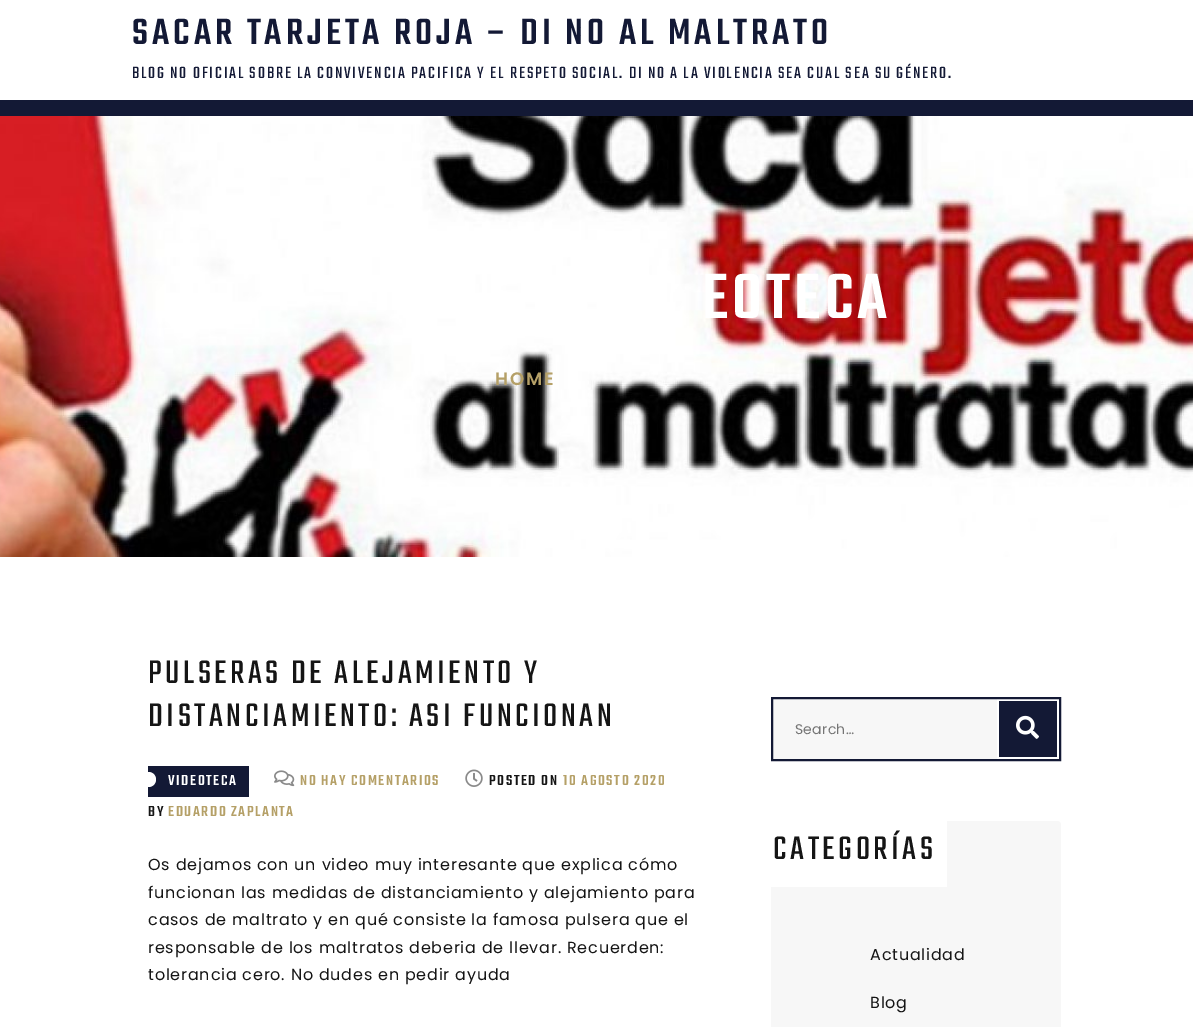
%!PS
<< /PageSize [1193 1027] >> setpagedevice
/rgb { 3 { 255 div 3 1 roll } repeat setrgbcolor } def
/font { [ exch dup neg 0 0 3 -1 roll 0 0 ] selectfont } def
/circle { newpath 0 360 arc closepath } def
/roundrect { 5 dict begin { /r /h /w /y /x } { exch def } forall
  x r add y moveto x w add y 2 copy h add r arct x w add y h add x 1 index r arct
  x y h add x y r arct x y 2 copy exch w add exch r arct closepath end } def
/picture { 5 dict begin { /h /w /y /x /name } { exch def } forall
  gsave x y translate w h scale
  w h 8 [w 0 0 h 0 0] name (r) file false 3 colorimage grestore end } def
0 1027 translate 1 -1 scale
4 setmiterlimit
255 255 255 rgb
0 0 1193 1027 rectfill
19 25 53 rgb
0 100 1193 16 rectfill
(img_01.rgb) 0 116 1193 441 picture
148 766 101 31 rectfill
255 255 255 rgb
148.5 779.5 7.5 circle fill
(img_02.rgb) 274 770 21 17 picture
(img_03.rgb) 465 769 18 18 picture
247 247 247 rgb
773 699 224 60 rectfill
19 25 53 rgb
2 setlinewidth
772 698 288 62 rectstroke
999 701 58 56 rectfill
(img_04.rgb) 1016 715 23 24 picture
247 247 247 rgb
771 821 290 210 4 roundrect fill
255 255 255 rgb
771 821 176 66 rectfill
/Teko-Medium 40 font
19 25 53 rgb
132 44 moveto 4 0 (SACAR TARJETA ROJA – DI NO AL MALTRATO) ashow
/Teko-Regular 18 font
132 78 moveto 1.8 0 (BLOG NO OFICIAL SOBRE LA CONVIVENCIA PACIFICA Y EL RESPETO SOCIAL. DI NO A LA VIOLENCIA SEA CUAL SEA SU GÉNERO.) ashow
/Teko-Medium 70 font
255 255 255 rgb
702 318 moveto 4 0 (EOTECA) ashow
/Poppins-SemiBold 18 font
181 160 103 rgb
495 385 moveto 2 0 (HOME) ashow
/Teko-Regular 36 font
21 21 21 rgb
148 683 moveto 3.6 0 (PULSERAS DE ALEJAMIENTO Y) ashow
148 726 moveto 3.6 0 (DISTANCIAMIENTO: ASI FUNCIONAN) ashow
/Teko-Medium 16 font
255 255 255 rgb
168 785 moveto 1.6 0 (VIDEOTECA) ashow
181 160 103 rgb
300 785 moveto 1.6 0 (NO HAY COMENTARIOS) ashow
21 21 21 rgb
489 785 moveto 1.6 0 (POSTED ON) ashow
181 160 103 rgb
563 785 moveto 1.6 0 (10 AGOSTO 2020) ashow
21 21 21 rgb
148 816 moveto 1.6 0 (BY) ashow
181 160 103 rgb
168 816 moveto 1.6 0 (EDUARDO ZAPLANTA) ashow
/Poppins-Regular 16 font
21 21 21 rgb
148 870 moveto 0.8 0 (Os dejamos con un video muy interesante que explica cómo) ashow
148 898 moveto 0.8 0 (funcionan las medidas de distanciamiento y alejamiento para) ashow
148 925 moveto 0.8 0 (casos de maltrato y en qué consiste la famosa pulsera que el) ashow
148 953 moveto 0.8 0 (responsable de los maltratos deberia de llevar. Recuerden:) ashow
148 980 moveto 0.8 0 (tolerancia cero. No dudes en pedir ayuda) ashow
/Poppins-Regular 14 font
117 117 117 rgb
795 734 moveto 0.25 0 (Search…) ashow
/Teko-Regular 36 font
21 21 21 rgb
773 859 moveto 3.6 0 (CATEGORÍAS) ashow
/Poppins-Regular 16 font
870 960 moveto 0.8 0 (Actualidad) ashow
870 1008 moveto 0.8 0 (Blog) ashow
showpage
